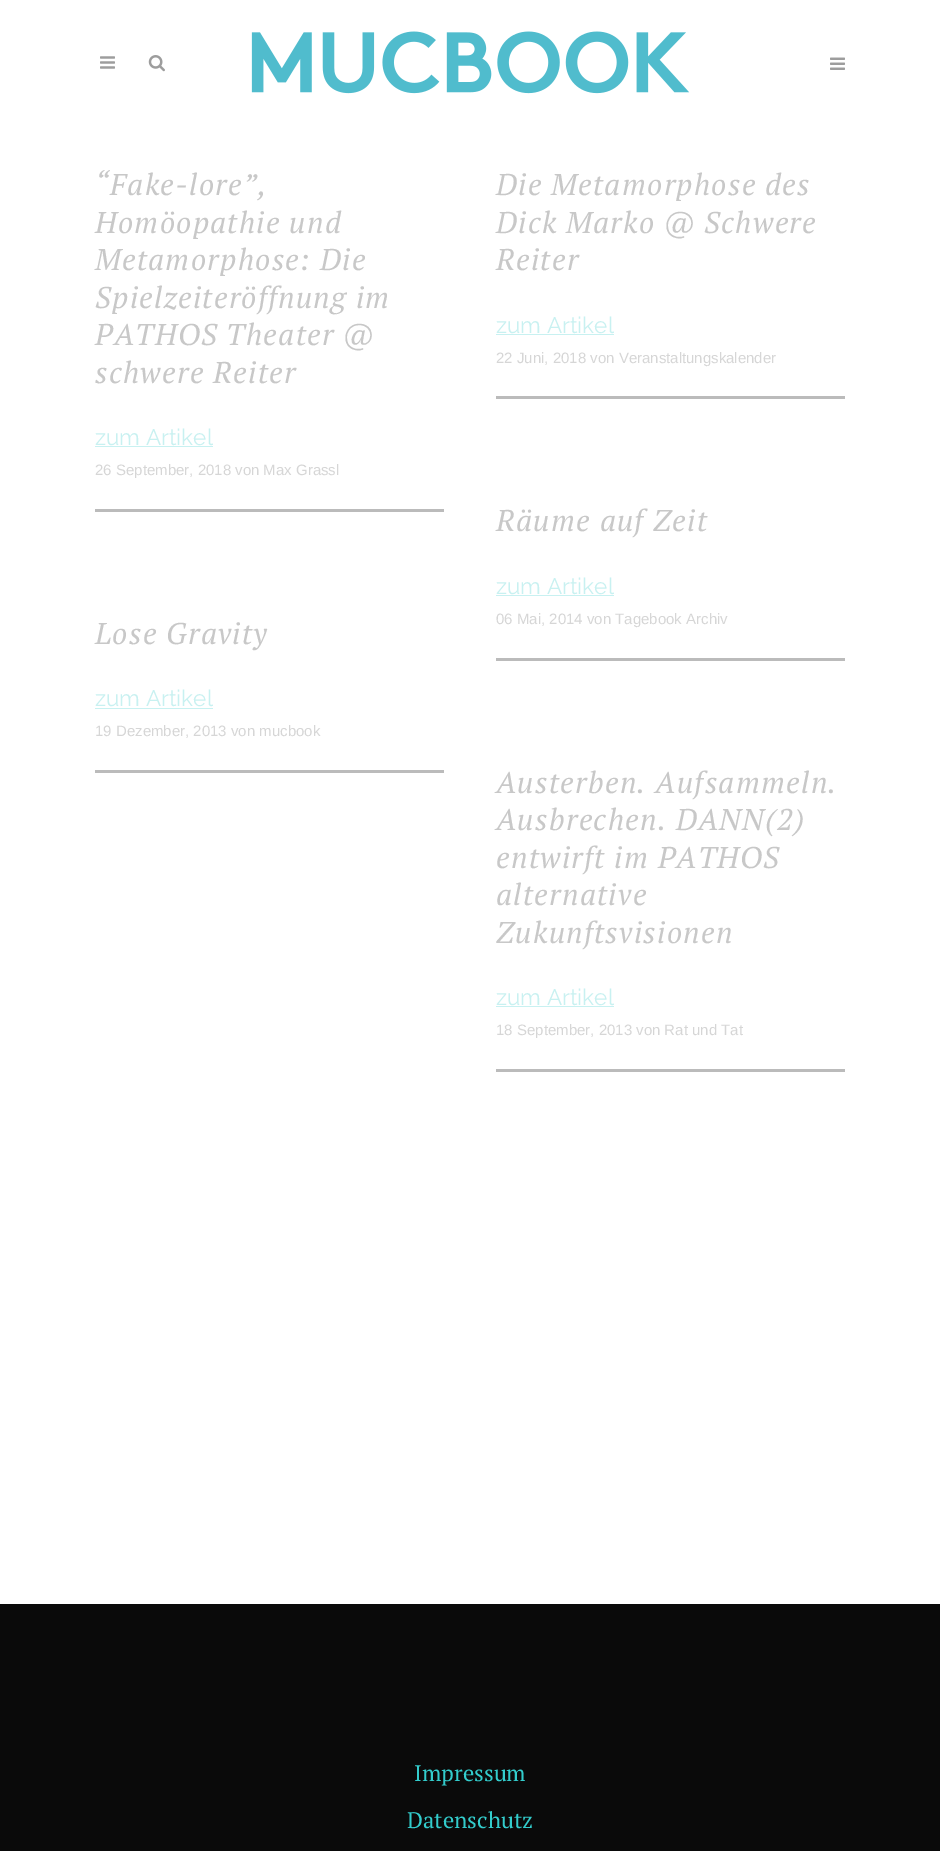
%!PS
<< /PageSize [940 1851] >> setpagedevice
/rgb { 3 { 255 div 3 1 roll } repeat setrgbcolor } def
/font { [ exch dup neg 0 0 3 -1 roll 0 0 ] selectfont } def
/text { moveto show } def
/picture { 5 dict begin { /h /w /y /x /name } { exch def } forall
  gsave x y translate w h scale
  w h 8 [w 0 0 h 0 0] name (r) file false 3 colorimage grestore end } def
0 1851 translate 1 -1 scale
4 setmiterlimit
255 255 255 rgb
0 0 940 1851 rectfill
(img_01.rgb) 100 56 15 13 picture
(img_02.rgb) 251 31 439 63 picture
(img_03.rgb) 148 55 17 17 picture
(img_04.rgb) 830 57 15 13 picture
187 187 187 rgb
95 509 349 3 rectfill
200 241 241 rgb
95 446 118 1 rectfill
187 187 187 rgb
496 396 349 3 rectfill
200 241 241 rgb
496 334 118 1 rectfill
187 187 187 rgb
496 658 349 3 rectfill
200 241 241 rgb
496 595 118 1 rectfill
187 187 187 rgb
95 770 349 3 rectfill
200 241 241 rgb
95 708 118 1 rectfill
187 187 187 rgb
496 1069 349 3 rectfill
200 241 241 rgb
496 1006 118 1 rectfill
10 10 10 rgb
0 1604 940 247 rectfill
/PTSerif-Italic 30 font
200 200 200 rgb
95 195 moveto 1.25 0 (“Fake-lore”,) ashow
95 233 moveto 1.25 0 (Homöopathie und) ashow
95 270 moveto 1.25 0 (Metamorphose: Die) ashow
95 308 moveto 1.25 0 (Spielzeiteröffnung im) ashow
95 345 moveto 1.25 0 (PATHOS Theater @) ashow
95 383 moveto 1.25 0 (schwere Reiter) ashow
/Raleway-Thin 22.5 font
200 241 241 rgb
(zum Artikel) 95 445 text
/LiberationSans-Regular 15 font
214 214 214 rgb
(26 September, 2018 von Max Grassl) 95 475 text
/PTSerif-Italic 30 font
200 200 200 rgb
496 195 moveto 1.25 0 (Die Metamorphose des) ashow
496 233 moveto 1.25 0 (Dick Marko @ Schwere) ashow
496 270 moveto 1.25 0 (Reiter) ashow
/Raleway-Thin 22.5 font
200 241 241 rgb
(zum Artikel) 496 333 text
/LiberationSans-Regular 15 font
214 214 214 rgb
(22 Juni, 2018 von Veranstaltungskalender) 496 363 text
/PTSerif-Italic 30 font
200 200 200 rgb
496 531 moveto 1.25 0 (Räume auf Zeit) ashow
/Raleway-Thin 22.5 font
200 241 241 rgb
(zum Artikel) 496 594 text
/LiberationSans-Regular 15 font
214 214 214 rgb
(06 Mai, 2014 von Tagebook Archiv) 496 624 text
/PTSerif-Italic 30 font
200 200 200 rgb
95 644 moveto 1.25 0 (Lose Gravity) ashow
/Raleway-Thin 22.5 font
200 241 241 rgb
(zum Artikel) 95 706 text
/LiberationSans-Regular 15 font
214 214 214 rgb
(19 Dezember, 2013 von mucbook) 95 736 text
/PTSerif-Italic 30 font
200 200 200 rgb
496 793 moveto 1.25 0 (Austerben. Aufsammeln.) ashow
496 830 moveto 1.25 0 (Ausbrechen. DANN\(2\)) ashow
496 868 moveto 1.25 0 (entwirft im PATHOS) ashow
496 905 moveto 1.25 0 (alternative) ashow
496 943 moveto 1.25 0 (Zukunftsvisionen) ashow
/Raleway-Thin 22.5 font
200 241 241 rgb
(zum Artikel) 496 1005 text
/LiberationSans-Regular 15 font
214 214 214 rgb
(18 September, 2013 von Rat und Tat) 496 1035 text
/PTSerif-Regular 22.5 font
51 204 204 rgb
(Impressum) 414 1781 text
(Datenschutz) 407 1828 text
showpage
